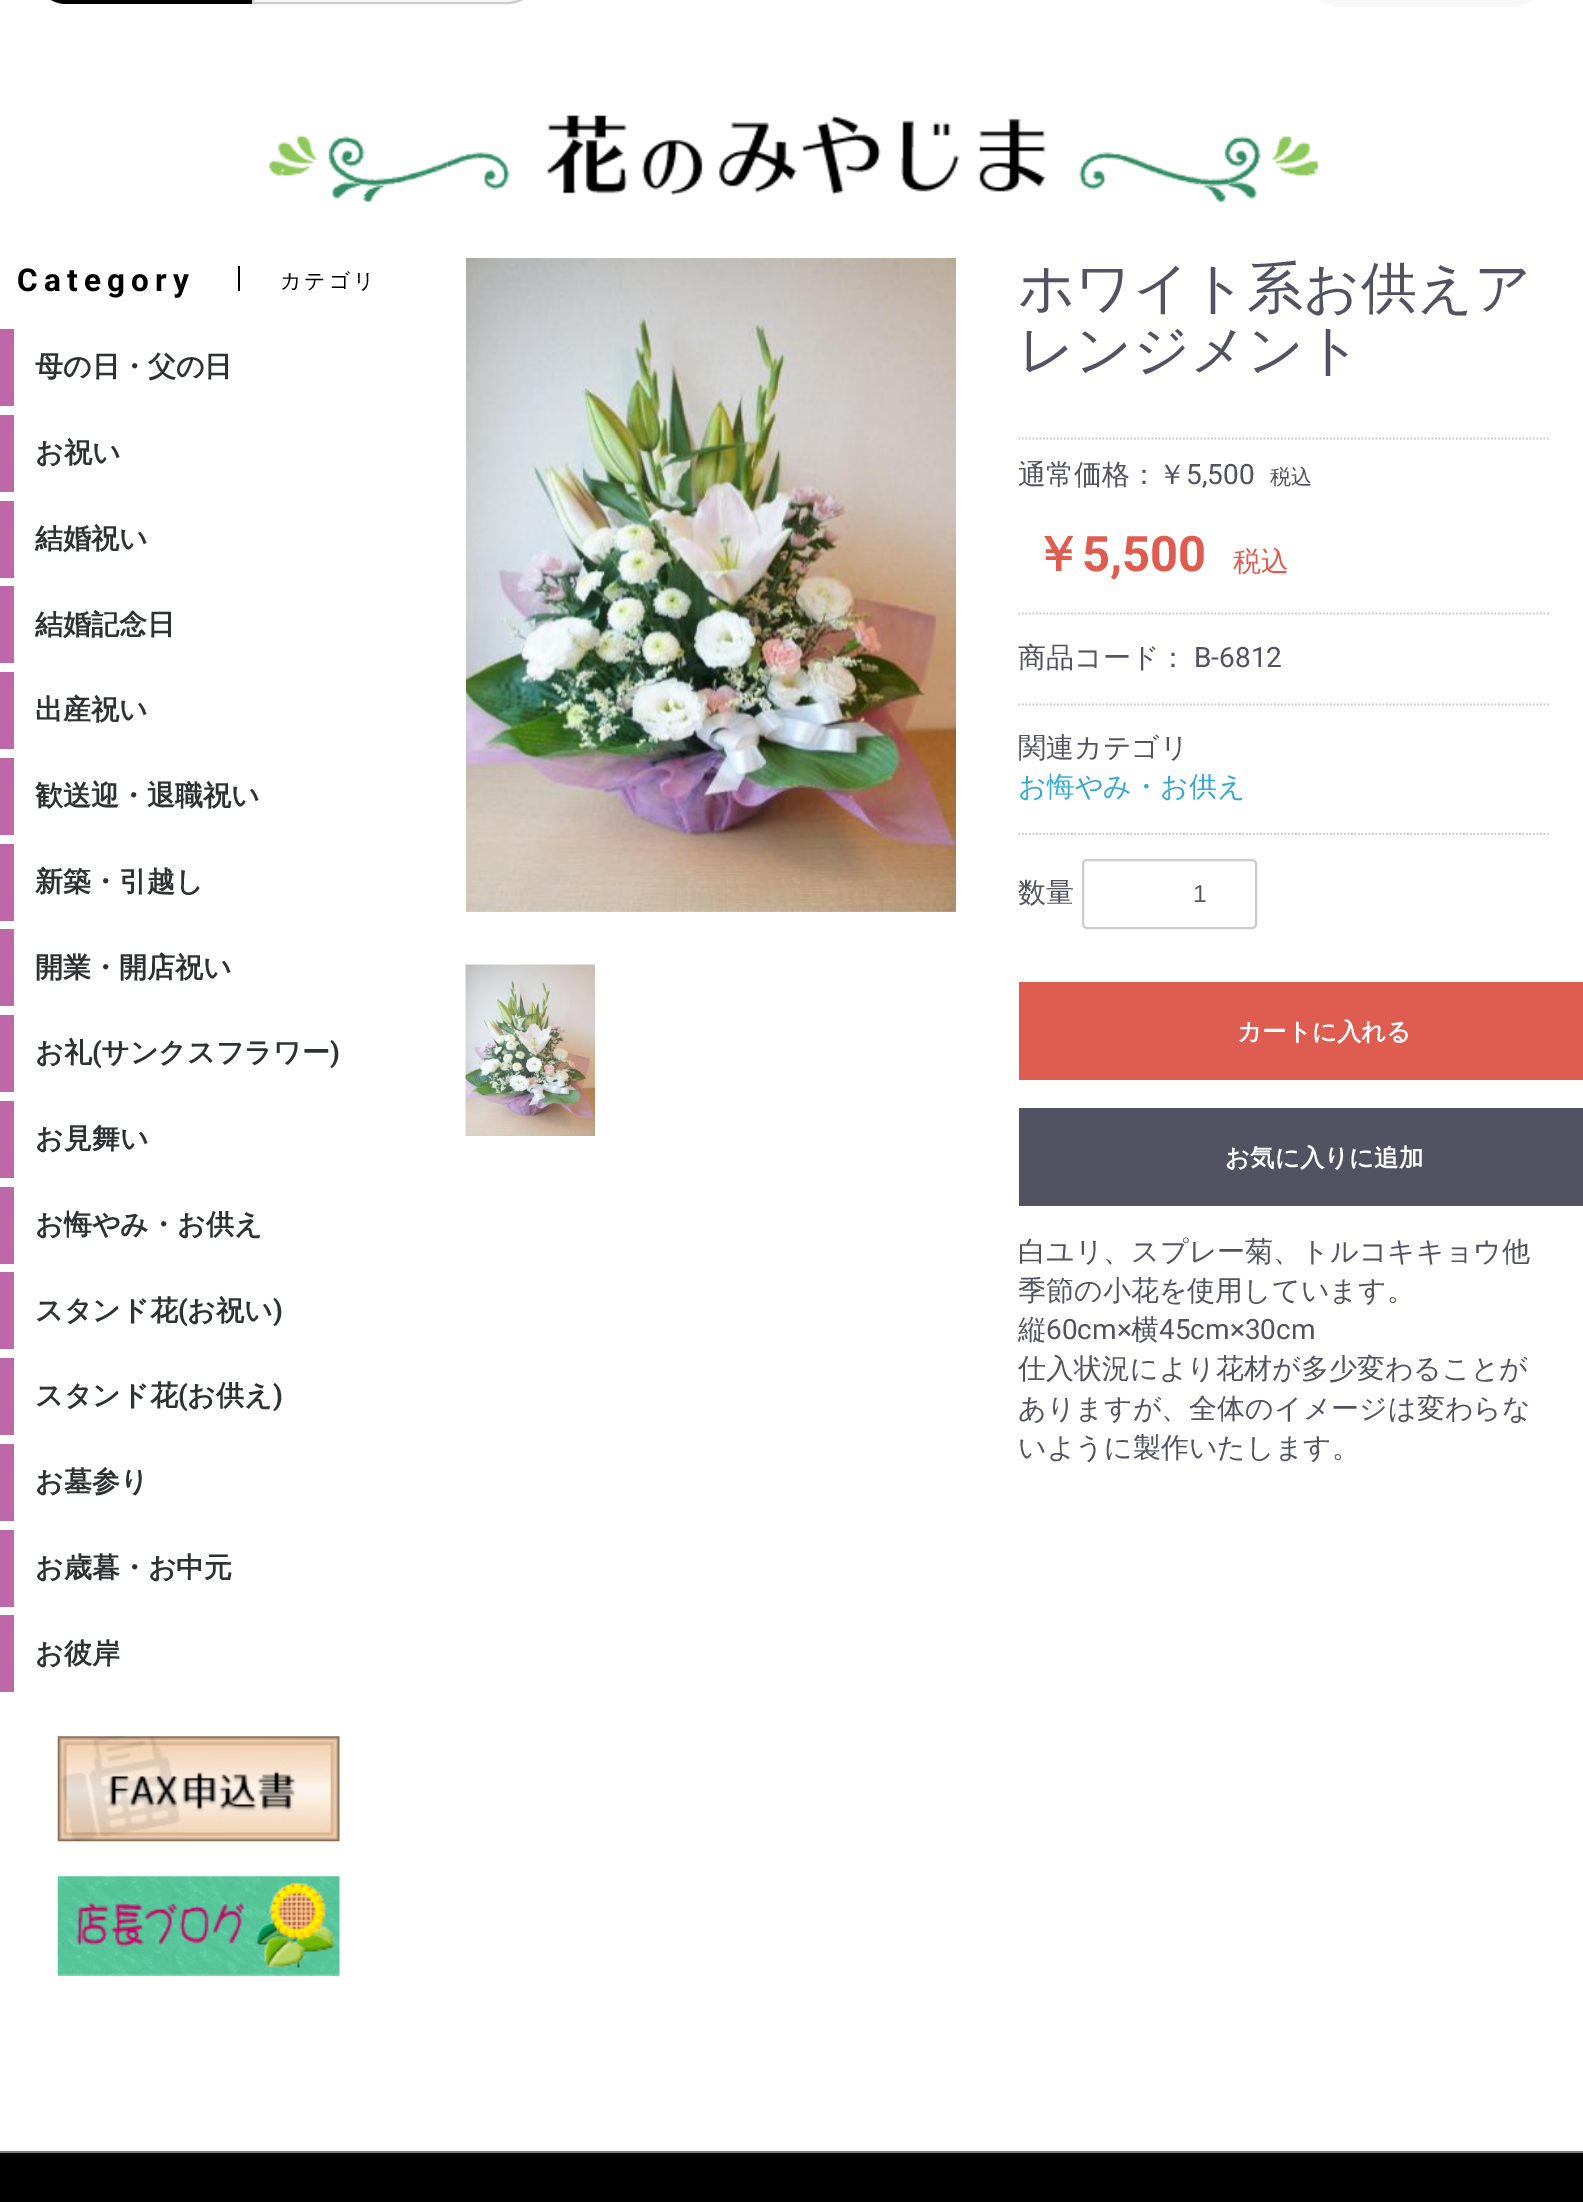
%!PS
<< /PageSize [1583 2202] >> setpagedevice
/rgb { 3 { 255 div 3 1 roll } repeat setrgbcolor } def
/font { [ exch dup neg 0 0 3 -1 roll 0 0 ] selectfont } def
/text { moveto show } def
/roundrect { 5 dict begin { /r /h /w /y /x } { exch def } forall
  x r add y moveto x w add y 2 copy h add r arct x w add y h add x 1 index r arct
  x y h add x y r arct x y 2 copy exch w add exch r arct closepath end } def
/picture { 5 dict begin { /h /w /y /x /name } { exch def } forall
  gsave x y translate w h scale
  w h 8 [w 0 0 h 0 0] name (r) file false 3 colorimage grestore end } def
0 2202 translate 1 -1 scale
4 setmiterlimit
255 255 255 rgb
0 0 1583 2202 rectfill
0 0 0 rgb
66.5 -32 moveto 185.5 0 rlineto 0 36 rlineto -185.5 0 rlineto -17.5 0 -31.5 -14 -31.5 -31.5 rcurveto 0 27 rlineto 0 -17.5 14 -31.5 31.5 -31.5 rcurveto closepath fill
246 246 246 rgb
253 -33 moveto 254.5 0 rlineto 17 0 30.5 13.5 30.5 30.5 rcurveto 0 -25 rlineto 0 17 -13.5 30.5 -30.5 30.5 rcurveto -254.5 0 rlineto closepath gsave fill grestore
204 204 204 rgb
2 setlinewidth
stroke
248 248 248 rgb
1304 -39 245 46 38.5 roundrect fill
(img_01.rgb) 269 115 1049 89 picture
0 0 0 rgb
238 266 2 25 rectfill
191 104 169 rgb
0 329 14 77 rectfill
0 415 14 77 rectfill
0 501 14 77 rectfill
0 586 14 77 rectfill
0 672 14 77 rectfill
0 758 14 77 rectfill
0 844 14 77 rectfill
0 929 14 77 rectfill
0 1015 14 77 rectfill
0 1101 14 77 rectfill
0 1187 14 77 rectfill
0 1272 14 77 rectfill
0 1358 14 77 rectfill
0 1444 14 77 rectfill
0 1530 14 77 rectfill
0 1615 14 77 rectfill
(img_02.rgb) 57 1736 283 106 picture
(img_03.rgb) 57 1876 283 100 picture
(img_04.rgb) 466 258 490 654 picture
(img_05.rgb) 465 964 130 172 picture
204 204 204 rgb
1.8 setlinewidth
[1.75 1.75] 0 setdash
1018.5 438.5 moveto 530.5 0 rlineto stroke
1018.5 613.5 moveto 530.5 0 rlineto stroke
1018.5 704.5 moveto 530.5 0 rlineto stroke
1018.5 834 moveto 530.5 0 rlineto stroke
2 setlinewidth
[] 0 setdash
1083 860 173 68 4 roundrect stroke
222 93 80 rgb
1019 982 564 98 rectfill
82 82 99 rgb
1019 1108 564 98 rectfill
0 0 0 rgb
0 2153 1583 49 rectfill
125 125 125 rgb
0 2151 1583 2 rectfill
/Roboto-Bold 31.5 font
0 0 0 rgb
17 291 moveto 6.25 0 (Category) ashow
/WenQuanYiZenHei-Medium 21 font
280 288 moveto 3 0 (カテゴリ) ashow
/WenQuanYiZenHei-Bold 28 font
46 50 51 rgb
(母の日・父の日) 35 376 text
(お祝い) 35 462 text
(結婚祝い) 35 548 text
(結婚記念日) 35 634 text
(出産祝い) 35 719 text
(歓送迎・退職祝い) 35 805 text
(新築・引越し) 35 891 text
(開業・開店祝い) 35 977 text
(お礼) 35 1062 text
/Roboto-Bold 28 font
(\() 92 1062 text
/WenQuanYiZenHei-Bold 28 font
(サンクスフラワー) 101 1062 text
/Roboto-Bold 28 font
(\)) 330 1062 text
/WenQuanYiZenHei-Bold 28 font
(お見舞い) 35 1148 text
(お悔やみ・お供え) 35 1234 text
(スタンド花) 35 1320 text
/Roboto-Bold 28 font
(\() 178 1320 text
/WenQuanYiZenHei-Bold 28 font
(お祝い) 187 1320 text
/Roboto-Bold 28 font
(\)) 273 1320 text
/WenQuanYiZenHei-Bold 28 font
(スタンド花) 35 1405 text
/Roboto-Bold 28 font
(\() 178 1405 text
/WenQuanYiZenHei-Bold 28 font
(お供え) 187 1405 text
/Roboto-Bold 28 font
(\)) 273 1405 text
/WenQuanYiZenHei-Bold 28 font
(お墓参り) 35 1491 text
(お歳暮・お中元) 35 1577 text
(お彼岸) 35 1663 text
/WenQuanYiZenHei-Medium 56 font
82 82 99 rgb
(ホワイト系お供えア) 1018 307 text
(レンジメント) 1018 369 text
/WenQuanYiZenHei-Medium 28 font
(通常価格：￥) 1018 484 text
/Roboto-Regular 28 font
(5,500) 1186 484 text
/WenQuanYiZenHei-Medium 21 font
(税込) 1270 484 text
/WenQuanYiZenHei-Bold 49 font
222 93 80 rgb
(￥) 1033 571 text
/Roboto-Bold 49 font
(5,500) 1082 571 text
/WenQuanYiZenHei-Medium 28 font
(税込) 1233 571 text
82 82 99 rgb
(商品コード：) 1018 667 text
/Roboto-Regular 28 font
(B-6812) 1194 667 text
/WenQuanYiZenHei-Medium 28 font
(関連カテゴリ) 1018 757 text
51 168 208 rgb
(お悔やみ・お供え) 1018 796 text
82 82 99 rgb
(数量) 1018 902 text
/LiberationSans-Regular 24.5 font
85 85 85 rgb
(1) 1193 902 text
/WenQuanYiZenHei-Bold 24.5 font
255 255 255 rgb
(カートに入れる) 1237 1040 text
(お気に入りに追加) 1225 1166 text
/WenQuanYiZenHei-Medium 28 font
82 82 99 rgb
(白ユリ、スプレー菊、トルコキキョウ他) 1018 1261 text
(季節の小花を使用しています。) 1018 1300 text
(縦) 1018 1339 text
/Roboto-Regular 28 font
(60cm×) 1046 1339 text
/WenQuanYiZenHei-Medium 28 font
(横) 1131 1339 text
/Roboto-Regular 28 font
(45cm×30cm) 1159 1339 text
/WenQuanYiZenHei-Medium 28 font
(仕入状況により花材が多少変わることが) 1018 1378 text
(ありますが、全体のイメージは変わらな) 1018 1418 text
(いように製作いたします。) 1018 1457 text
showpage
